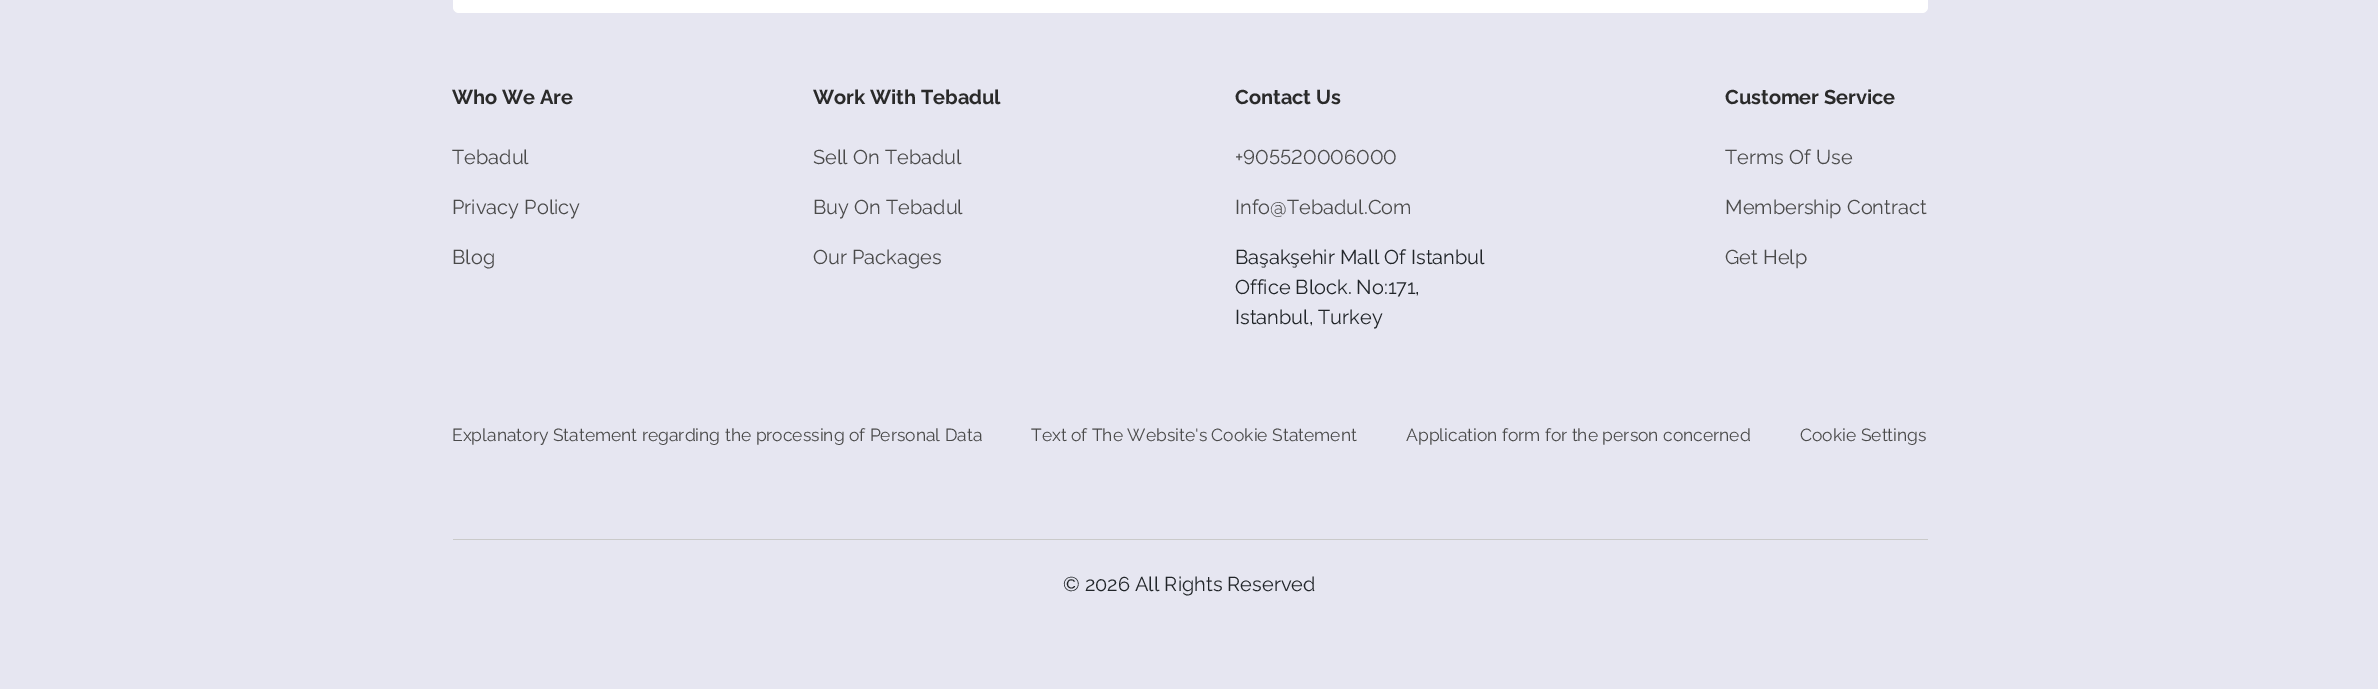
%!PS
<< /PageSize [2378 689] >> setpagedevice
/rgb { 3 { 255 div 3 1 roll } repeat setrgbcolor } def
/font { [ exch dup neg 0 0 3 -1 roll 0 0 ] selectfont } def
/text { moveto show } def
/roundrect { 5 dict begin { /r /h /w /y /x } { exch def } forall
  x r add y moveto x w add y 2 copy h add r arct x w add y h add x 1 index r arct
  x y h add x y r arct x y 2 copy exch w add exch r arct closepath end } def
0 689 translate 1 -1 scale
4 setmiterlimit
230 230 241 rgb
0 0 2378 689 rectfill
255 255 255 rgb
453 -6 1475 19 6 roundrect fill
202 202 202 rgb
453 539 1475 1 rectfill
/Raleway-Bold 20 font
42 42 42 rgb
(Who We Are) 452 104 text
/Raleway-Regular 20 font
74 74 74 rgb
(Tebadul) 452 164 text
(Privacy Policy) 452 214 text
(Blog) 452 264 text
/Raleway-Bold 20 font
42 42 42 rgb
(Work With Tebadul) 813 104 text
/Raleway-Regular 20 font
74 74 74 rgb
(Sell On Tebadul) 813 164 text
(Buy On Tebadul) 813 214 text
(Our Packages) 813 264 text
/Raleway-Bold 20 font
42 42 42 rgb
(Contact Us) 1235 104 text
/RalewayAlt-Regular 20 font
74 74 74 rgb
(+905520006000) 1235 164 text
/Raleway-Regular 20 font
(Info@Tebadul.Com) 1235 214 text
33 37 41 rgb
(Başakşehir Mall Of Istanbul) 1235 264 text
(Office Block. No:171,) 1235 294 text
(Istanbul, Turkey) 1235 324 text
/Raleway-Bold 20 font
42 42 42 rgb
(Customer Service) 1725 104 text
/Raleway-Regular 20 font
74 74 74 rgb
(Terms Of Use) 1725 164 text
(Membership Contract) 1725 214 text
(Get Help) 1725 264 text
/Raleway-Regular 17.5 font
(Explanatory Statement regarding the processing of Personal Data) 452 441 text
(Text of The Website's Cookie Statement) 1031 441 text
(Application form for the person concerned) 1406 441 text
(Cookie Settings) 1800 441 text
/Raleway-Regular 20 font
33 37 41 rgb
(© 2026 All Rights Reserved) 1063 591 text
showpage
